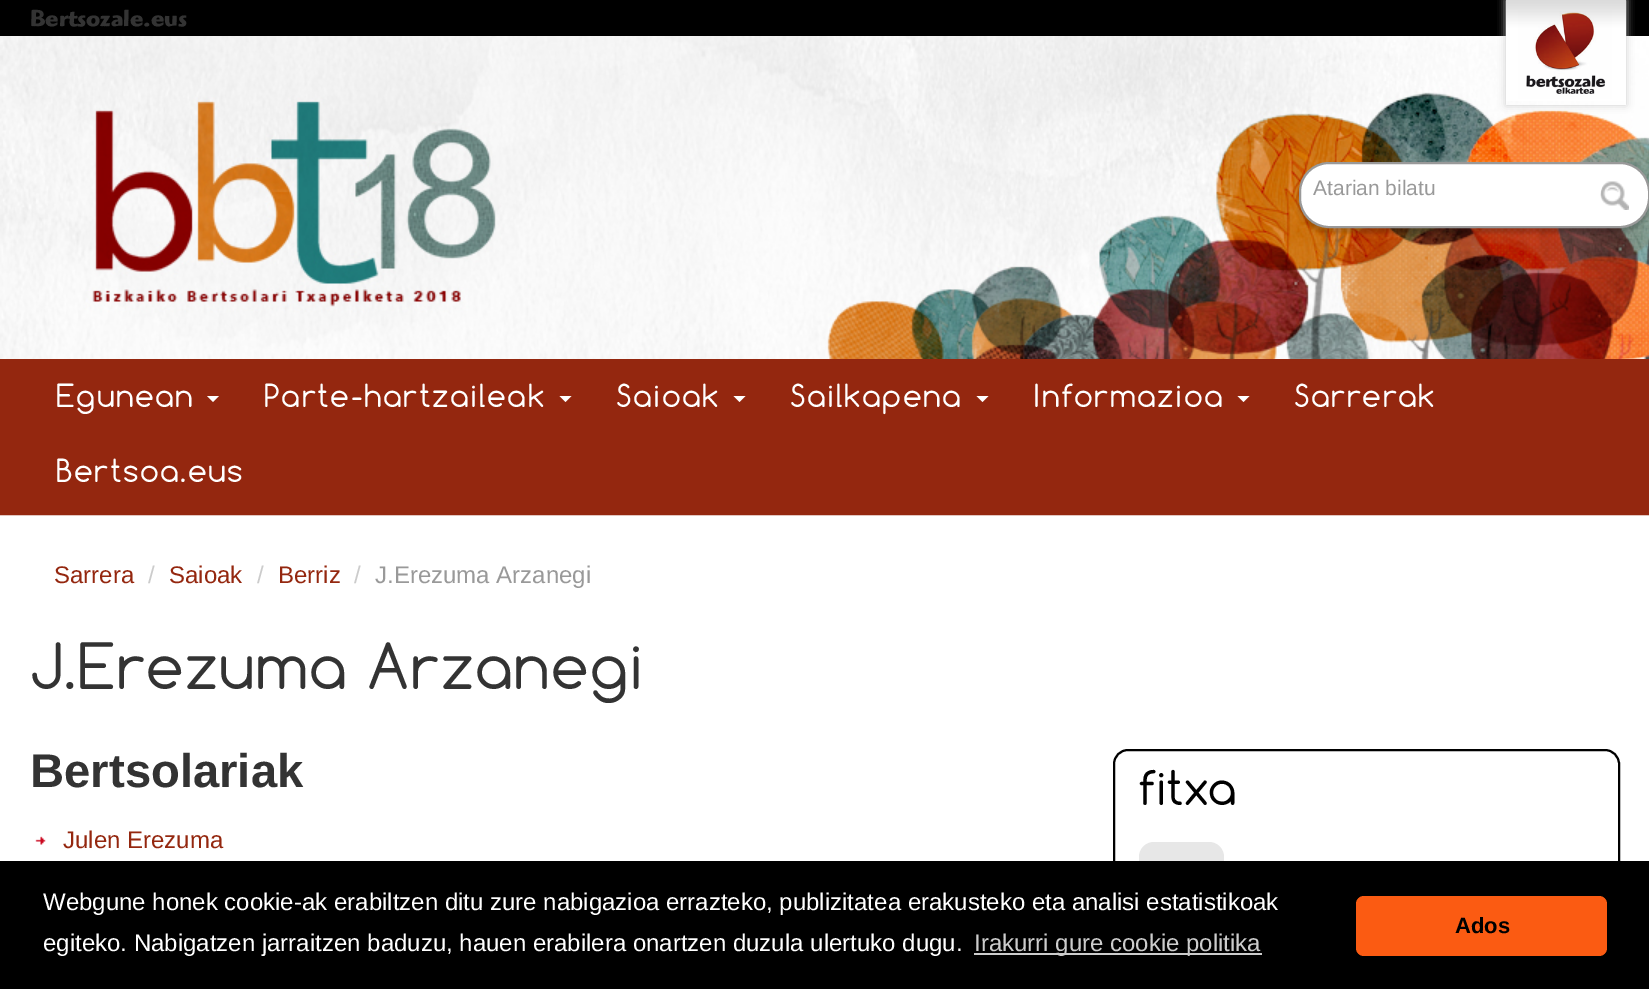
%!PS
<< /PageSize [1649 989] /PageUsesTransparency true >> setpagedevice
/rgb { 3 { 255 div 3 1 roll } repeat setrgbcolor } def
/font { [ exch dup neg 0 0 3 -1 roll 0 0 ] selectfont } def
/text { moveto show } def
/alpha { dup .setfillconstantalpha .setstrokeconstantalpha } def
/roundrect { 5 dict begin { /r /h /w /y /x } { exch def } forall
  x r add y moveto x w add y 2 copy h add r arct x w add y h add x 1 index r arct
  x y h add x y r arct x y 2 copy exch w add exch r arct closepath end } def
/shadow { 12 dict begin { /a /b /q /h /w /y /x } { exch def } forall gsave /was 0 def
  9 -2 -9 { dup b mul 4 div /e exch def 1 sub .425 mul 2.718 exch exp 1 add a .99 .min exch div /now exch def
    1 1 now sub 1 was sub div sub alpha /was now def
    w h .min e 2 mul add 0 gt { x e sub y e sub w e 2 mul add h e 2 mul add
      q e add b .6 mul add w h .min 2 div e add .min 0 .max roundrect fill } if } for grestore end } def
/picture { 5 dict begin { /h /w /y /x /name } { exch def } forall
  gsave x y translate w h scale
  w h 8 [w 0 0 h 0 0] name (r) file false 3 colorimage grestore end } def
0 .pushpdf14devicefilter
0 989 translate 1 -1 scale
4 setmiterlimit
255 255 255 rgb
0 0 1649 989 rectfill
0 0 0 rgb
0 0 1649 36 rectfill
(img_02.rgb) 0 36 1649 323 picture
gsave
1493 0 moveto 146 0 rlineto 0 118 rlineto -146 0 rlineto closepath 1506 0 moveto 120 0 rlineto 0 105 rlineto -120 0 rlineto closepath eoclip newpath
204 204 204 rgb
1506 0 120 105 0 4 1 shadow
grestore
(img_01.rgb) 1506 0 120 101 picture
1 1 1 rgb
1299 167 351 66 30 2 0.2 shadow
255 255 255 rgb
1300 163 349 64 29 roundrect gsave fill grestore
153 153 153 rgb
2 setlinewidth
stroke
(img_03.rgb) 1600 181 29 29 picture
148 39 15 rgb
3 setlinewidth
1.5 360.5 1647 153 rectstroke
3 362 1644 150 rectfill
255 255 255 rgb
207 396 moveto 12 0 rlineto -6 6 rlineto closepath fill
559.5 396 moveto 12 0 rlineto -6 6 rlineto closepath fill
733.5 396 moveto 12 0 rlineto -6 6 rlineto closepath fill
976.5 396 moveto 12 0 rlineto -6 6 rlineto closepath fill
1237.5 396 moveto 12 0 rlineto -6 6 rlineto closepath fill
(img_04.rgb) 35 836 11 9 picture
0 0 0 rgb
2 setlinewidth
1114 750 505 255 14 roundrect stroke
231 231 231 rgb
1139 842 85 49 15 roundrect fill
0 0 0 rgb
0 861 1649 128 rectfill
204 204 204 rgb
974 953 288 2 rectfill
251 91 18 rgb
1356 896 251 60 8 roundrect fill
/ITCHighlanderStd-Bold 24 font
51 51 51 rgb
(Bertsozale.eus) 30 26 text
/LiberationSans-Regular 21 font
153 153 153 rgb
(Atarian bilatu) 1313 195 text
/Comfortaa-Regular 30 font
255 255 255 rgb
56 407 moveto 1.5 0 (Egunean) ashow
264 407 moveto 1.5 0 (Parte-hartzaileak) ashow
616 407 moveto 1.5 0 (Saioak) ashow
790 407 moveto 1.5 0 (Sailkapena) ashow
1033 407 moveto 1.5 0 (Informazioa) ashow
1294 407 moveto 1.5 0 (Sarrerak) ashow
56 482 moveto 1.5 0 (Bertsoa.eus) ashow
/LiberationSans-Regular 24 font
148 39 15 rgb
(Sarrera) 54 583 text
204 204 204 rgb
(/) 148 583 text
148 39 15 rgb
(Saioak) 169 583 text
204 204 204 rgb
(/) 257 583 text
148 39 15 rgb
(Berriz) 278 583 text
204 204 204 rgb
(/) 354 583 text
153 153 153 rgb
(J.Erezuma Arzanegi) 375 583 text
/Comfortaa-Regular 60 font
51 51 51 rgb
30 689 moveto 1.5 0 (J.Erezuma Arzanegi) ashow
/LiberationSans-Bold 47.25 font
(Bertsolariak) 30 787 text
/LiberationSans-Regular 24 font
148 39 15 rgb
(Julen Erezuma) 63 848 text
/Comfortaa-Regular 45 font
0 0 0 rgb
(fitxa) 1138 805 text
/LiberationSans-Regular 24 font
255 255 255 rgb
(Webgune honek cookie-ak erabiltzen ditu zure nabigazioa errazteko, publizitatea erakusteko eta analisi estatistikoak) 43 910 text
(egiteko. Nabigatzen jarraitzen baduzu, hauen erabilera onartzen duzula ulertuko dugu.) 43 951 text
204 204 204 rgb
(Irakurri gure cookie politika) 974 951 text
/LiberationSans-Bold 22 font
0 0 0 rgb
(Ados) 1455 933 text
.poppdf14devicefilter showpage
